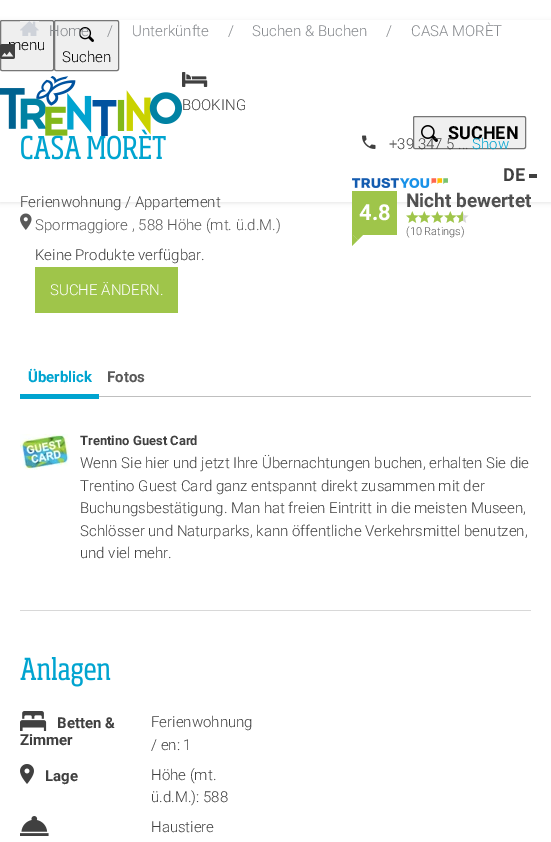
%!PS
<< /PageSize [551 842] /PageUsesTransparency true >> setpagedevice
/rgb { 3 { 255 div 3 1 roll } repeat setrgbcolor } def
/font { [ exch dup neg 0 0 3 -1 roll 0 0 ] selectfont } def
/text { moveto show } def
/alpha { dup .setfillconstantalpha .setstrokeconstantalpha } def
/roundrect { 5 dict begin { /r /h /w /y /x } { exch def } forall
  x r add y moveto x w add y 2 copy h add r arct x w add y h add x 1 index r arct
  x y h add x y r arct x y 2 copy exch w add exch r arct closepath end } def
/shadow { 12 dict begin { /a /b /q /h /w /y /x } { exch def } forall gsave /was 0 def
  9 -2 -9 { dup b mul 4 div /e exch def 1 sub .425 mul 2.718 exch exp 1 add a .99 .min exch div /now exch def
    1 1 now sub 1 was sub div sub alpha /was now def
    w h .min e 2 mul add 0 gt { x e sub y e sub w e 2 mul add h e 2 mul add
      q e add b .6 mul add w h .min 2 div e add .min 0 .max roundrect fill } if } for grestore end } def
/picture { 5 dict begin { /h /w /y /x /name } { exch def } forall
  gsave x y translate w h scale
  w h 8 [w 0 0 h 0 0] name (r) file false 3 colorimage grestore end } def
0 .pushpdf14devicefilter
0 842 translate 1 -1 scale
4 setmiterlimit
255 255 255 rgb
0 0 551 842 rectfill
0 0 0 rgb
0 21 551 182 0 2 0.1 shadow
255 255 255 rgb
0 20 551 182 rectfill
239 239 239 rgb
0.5 20.5 53 50 1.5 roundrect gsave fill grestore
118 118 118 rgb
stroke
(img_01.rgb) 20 21 19 15 picture
239 239 239 rgb
54.5 20.5 64 50 1.5 roundrect gsave fill grestore
118 118 118 rgb
stroke
(img_02.rgb) 79 27 15 15 picture
(img_03.rgb) 0 76 182 60 picture
(img_04.rgb) 182 72 26 15 picture
239 239 239 rgb
413.5 116.5 112 32 1.5 roundrect gsave fill grestore
118 118 118 rgb
stroke
(img_05.rgb) 421 125 17 17 picture
64 64 64 rgb
529 174 8 4 rectfill
(img_07.rgb) 21 129 145 31 picture
(img_08.rgb) 20 213 12 17 picture
(img_09.rgb) 362 135 14 14 picture
(img_10.rgb) 352 178 96 10 picture
159 197 74 rgb
352 191 45 44 rectfill
352 234 moveto 12 0 rlineto -6 6 rlineto closepath fill
352 246 moveto 0 -12 rlineto 6 6 rlineto closepath fill
(img_11.rgb) 406 211 13 12 picture
(img_12.rgb) 418 211 13 12 picture
(img_11.rgb) 431 211 13 12 picture
(img_11.rgb) 444 211 13 12 picture
(img_13.rgb) 456 211 13 12 picture
(img_14.rgb) 456 211 7 12 picture
35 267 143 46 rectfill
191 191 191 rgb
99 396 432 1 rectfill
0 164 208 rgb
20 394 79 5 rectfill
(img_15.rgb) 20 434 49 36 picture
216 216 216 rgb
20 610 511 1 rectfill
(img_16.rgb) 20 657 91 30 picture
(img_17.rgb) 20 711 27 20 picture
(img_18.rgb) 20 764 14 20 picture
(img_19.rgb) 20 816 29 20 picture
/Roboto-Light 15 font
134 137 141 rgb
(Home) 49 36 text
(/) 107 36 text
(Unterkünfte) 132 36 text
(/) 228 36 text
(Suchen & Buchen) 252 36 text
(/) 386 36 text
(CASA MORÈT) 411 36 text
0 0 0 rgb
(menu) 8 50 text
(Suchen) 62 62 text
64 64 64 rgb
(BOOKING) 182 110 text
/Roboto-Bold 18 font
0 0 0 rgb
(SUCHEN) 448 139 text
64 64 64 rgb
(DE) 503 181 text
(img_06.rgb) 0 44 15 15 picture
/Roboto-Light 15 font
(Ferienwohnung / Appartement) 20 207 text
89 89 89 rgb
(Spormaggiore , 588 Höhe \(mt. ü.d.M.\)) 35 230 text
64 64 64 rgb
(+39 347 5 ...) 389 149 text
0 164 208 rgb
(Show) 472 149 text
/Roboto-Bold 22 font
255 255 255 rgb
(4.8) 359 220 text
/Roboto-Bold 19 font
80 80 80 rgb
(Nicht bewertet) 406 207 text
/Roboto-Light 11 font
89 89 89 rgb
(\(10 Ratings\)) 406 235 text
/Roboto-Light 15 font
64 64 64 rgb
(Keine Produkte verfügbar.) 35 260 text
255 255 255 rgb
(SUCHE ÄNDERN.) 50 295 text
/Roboto-Bold 15 font
0 164 208 rgb
(Überblick) 28 382 text
89 89 89 rgb
(Fotos) 107 382 text
/Roboto-Bold 13 font
64 64 64 rgb
(Trentino Guest Card) 80 445 text
/Roboto-Light 15 font
(Wenn Sie hier und jetzt Ihre Übernachtungen buchen, erhalten Sie die) 80 468 text
(Trentino Guest Card ganz entspannt direkt zusammen mit der) 80 491 text
(Buchungsbestätigung. Man hat freien Eintritt in die meisten Museen,) 80 513 text
(Schlösser und Naturparks, kann öffentliche Verkehrsmittel benutzen,) 80 536 text
(und viel mehr.) 80 558 text
/Roboto-Bold 15 font
(Betten &) 57 728 text
(Zimmer) 20 745 text
/Roboto-Light 15 font
(Ferienwohnung) 151 727 text
(/ en: 1) 151 750 text
/Roboto-Bold 15 font
(Lage) 45 781 text
/Roboto-Light 15 font
(Höhe \(mt.) 151 780 text
(ü.d.M.\): 588) 151 802 text
(Haustiere) 151 832 text
.poppdf14devicefilter showpage
